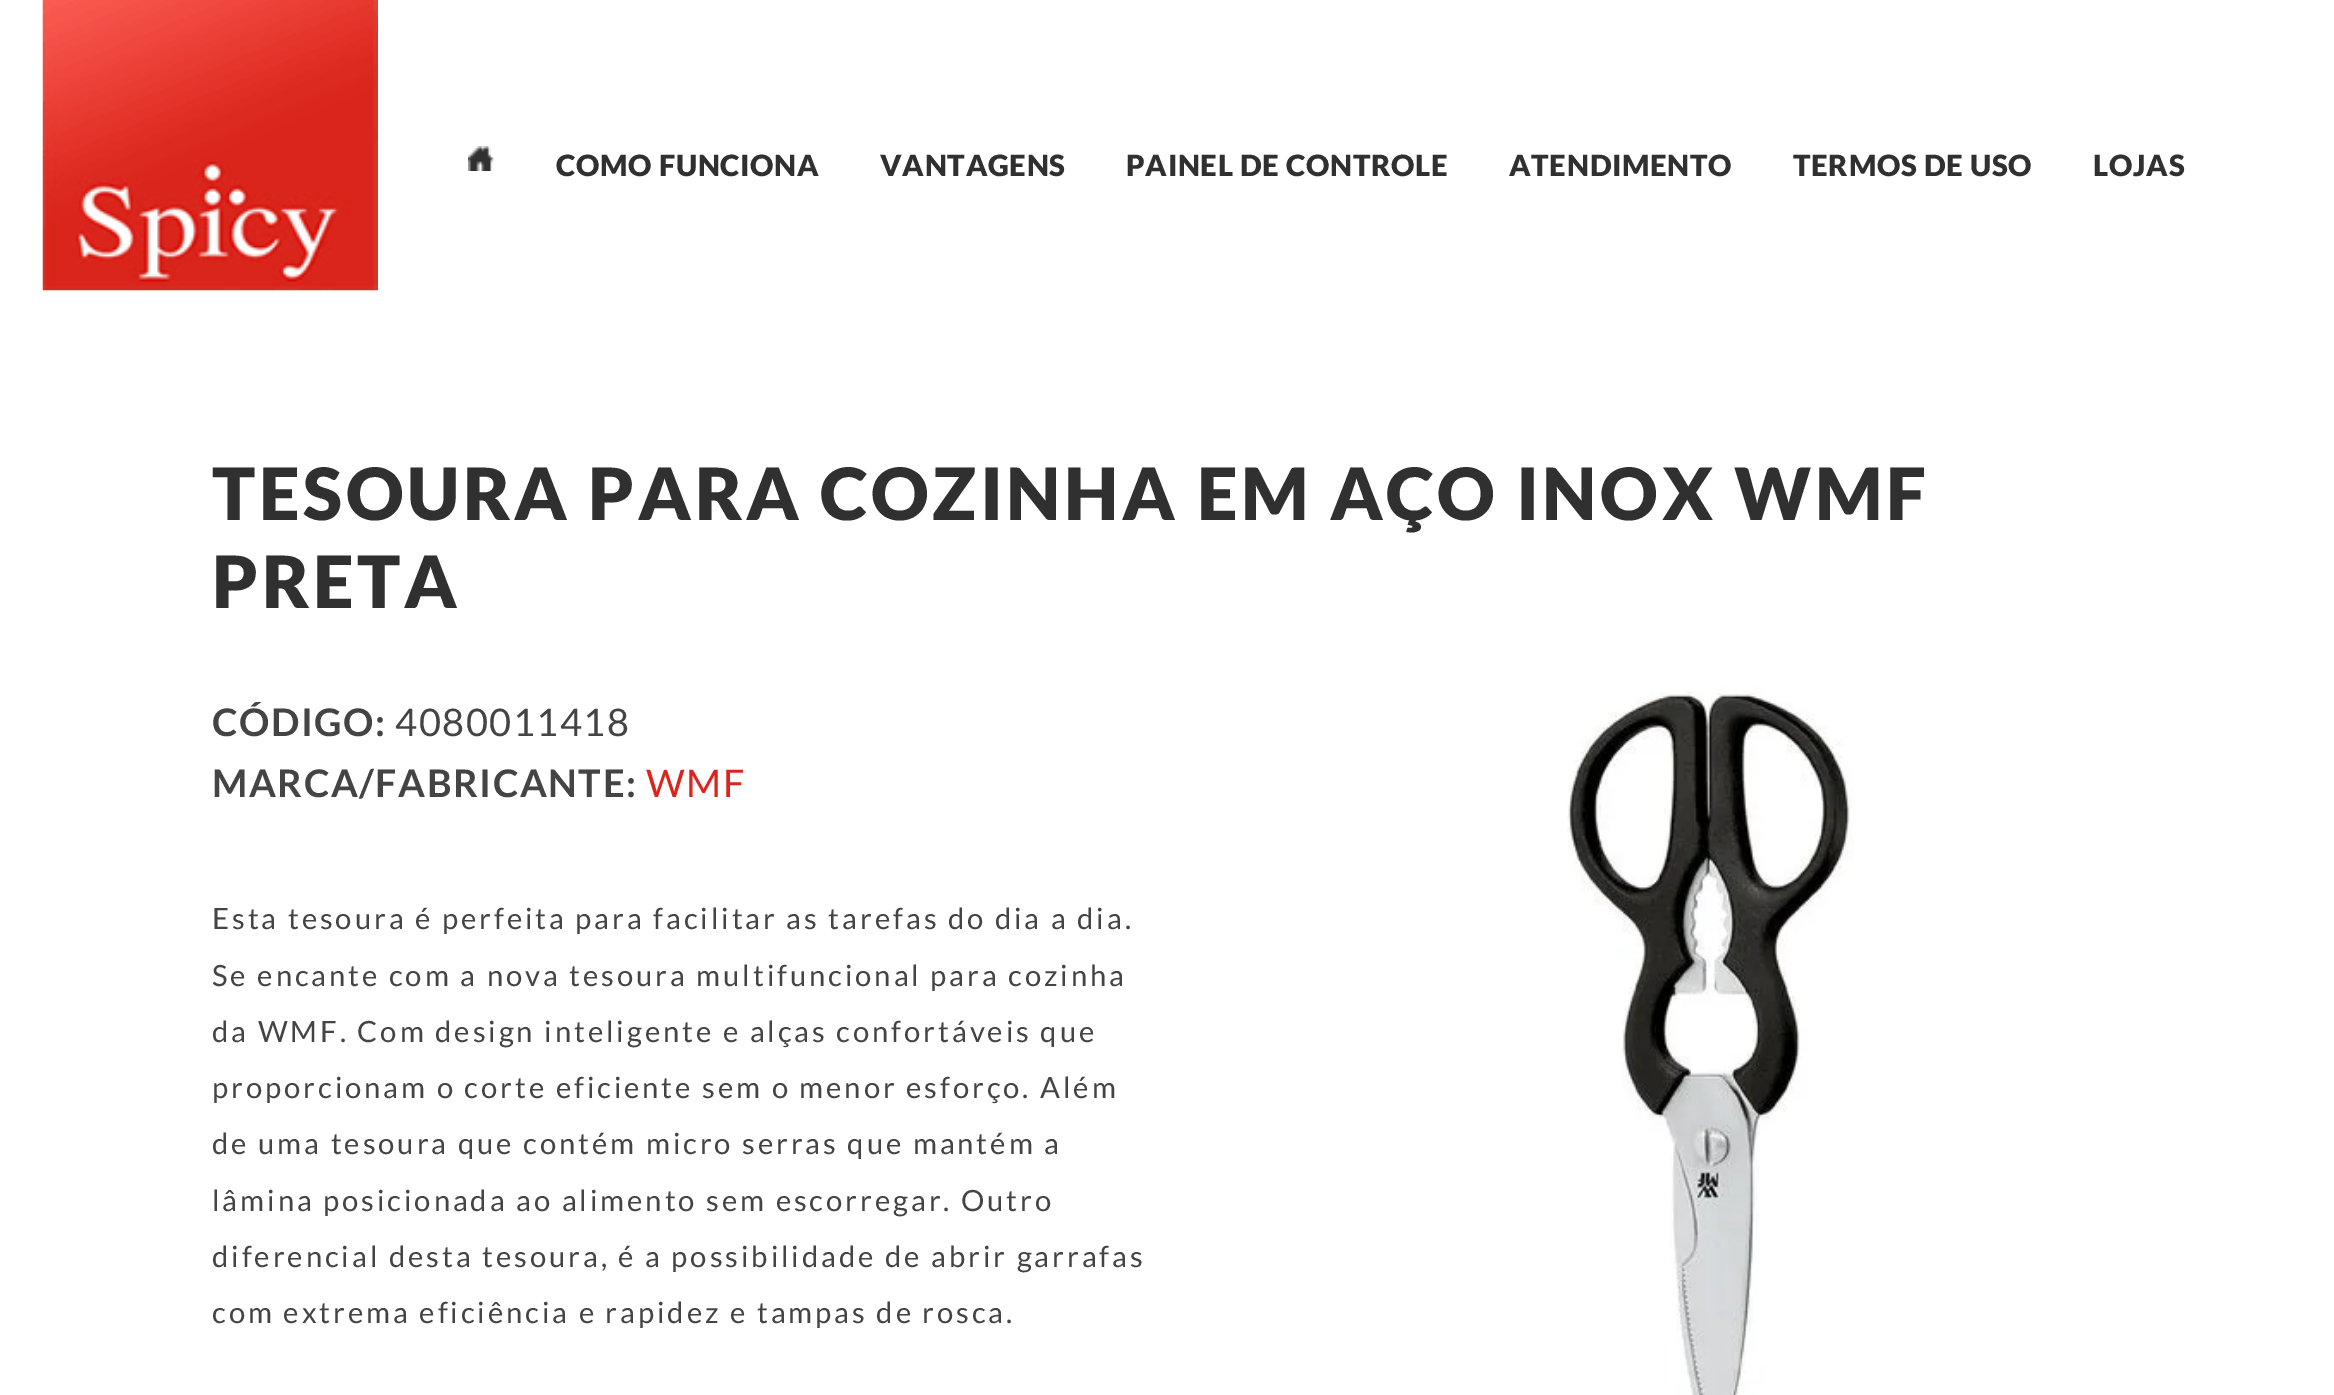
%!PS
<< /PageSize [2334 1395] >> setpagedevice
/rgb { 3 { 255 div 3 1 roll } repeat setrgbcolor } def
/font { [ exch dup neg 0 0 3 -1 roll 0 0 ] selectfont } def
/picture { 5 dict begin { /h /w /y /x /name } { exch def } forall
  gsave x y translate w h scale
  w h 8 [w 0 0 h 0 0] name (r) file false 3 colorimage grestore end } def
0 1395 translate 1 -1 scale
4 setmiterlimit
255 255 255 rgb
0 0 2334 1395 rectfill
(img_01.rgb) 42 0 336 291 picture
(img_02.rgb) 468 146 26 25 picture
(img_03.rgb) 1567 687 287 708 picture
/Lato-Black 29.25 font
48 48 48 rgb
556 176 moveto 0.7 0 (COMO FUNCIONA) ashow
880 176 moveto 0.7 0 (VANTAGENS) ashow
1126 176 moveto 0.7 0 (PAINEL DE CONTROLE) ashow
1509 176 moveto 0.7 0 (ATENDIMENTO) ashow
1793 176 moveto 0.7 0 (TERMOS DE USO) ashow
2093 176 moveto 0.7 0 (LOJAS) ashow
/Lato-Black 72 font
212 520 moveto 3.6 0 (TESOURA PARA COZINHA EM AÇO INOX WMF) ashow
212 608 moveto 3.6 0 (PRETA) ashow
/Lato-Bold 38 font
68 68 68 rgb
212 736 moveto 1.5 0 (CÓDIGO:) ashow
/Lato-Regular 38 font
395 736 moveto 1.5 0 (4080011418) ashow
/Lato-Bold 38 font
212 797 moveto 1.5 0 (MARCA/FABRICANTE:) ashow
/Lato-Regular 38 font
219 36 27 rgb
646 797 moveto 1.5 0 (WMF) ashow
/Lato-Regular 29.25 font
68 68 68 rgb
212 929 moveto 2.93 0 (Esta tesoura é perfeita para facilitar as tarefas do dia a dia.) ashow
212 986 moveto 2.93 0 (Se encante com a nova tesoura multifuncional para cozinha) ashow
212 1042 moveto 2.93 0 (da WMF. Com design inteligente e alças confortáveis que) ashow
212 1098 moveto 2.93 0 (proporcionam o corte eficiente sem o menor esforço. Além) ashow
212 1154 moveto 2.93 0 (de uma tesoura que contém micro serras que mantém a) ashow
212 1211 moveto 2.93 0 (lâmina posicionada ao alimento sem escorregar. Outro) ashow
212 1267 moveto 2.93 0 (diferencial desta tesoura, é a possibilidade de abrir garrafas) ashow
212 1323 moveto 2.93 0 (com extrema eficiência e rapidez e tampas de rosca.) ashow
showpage
